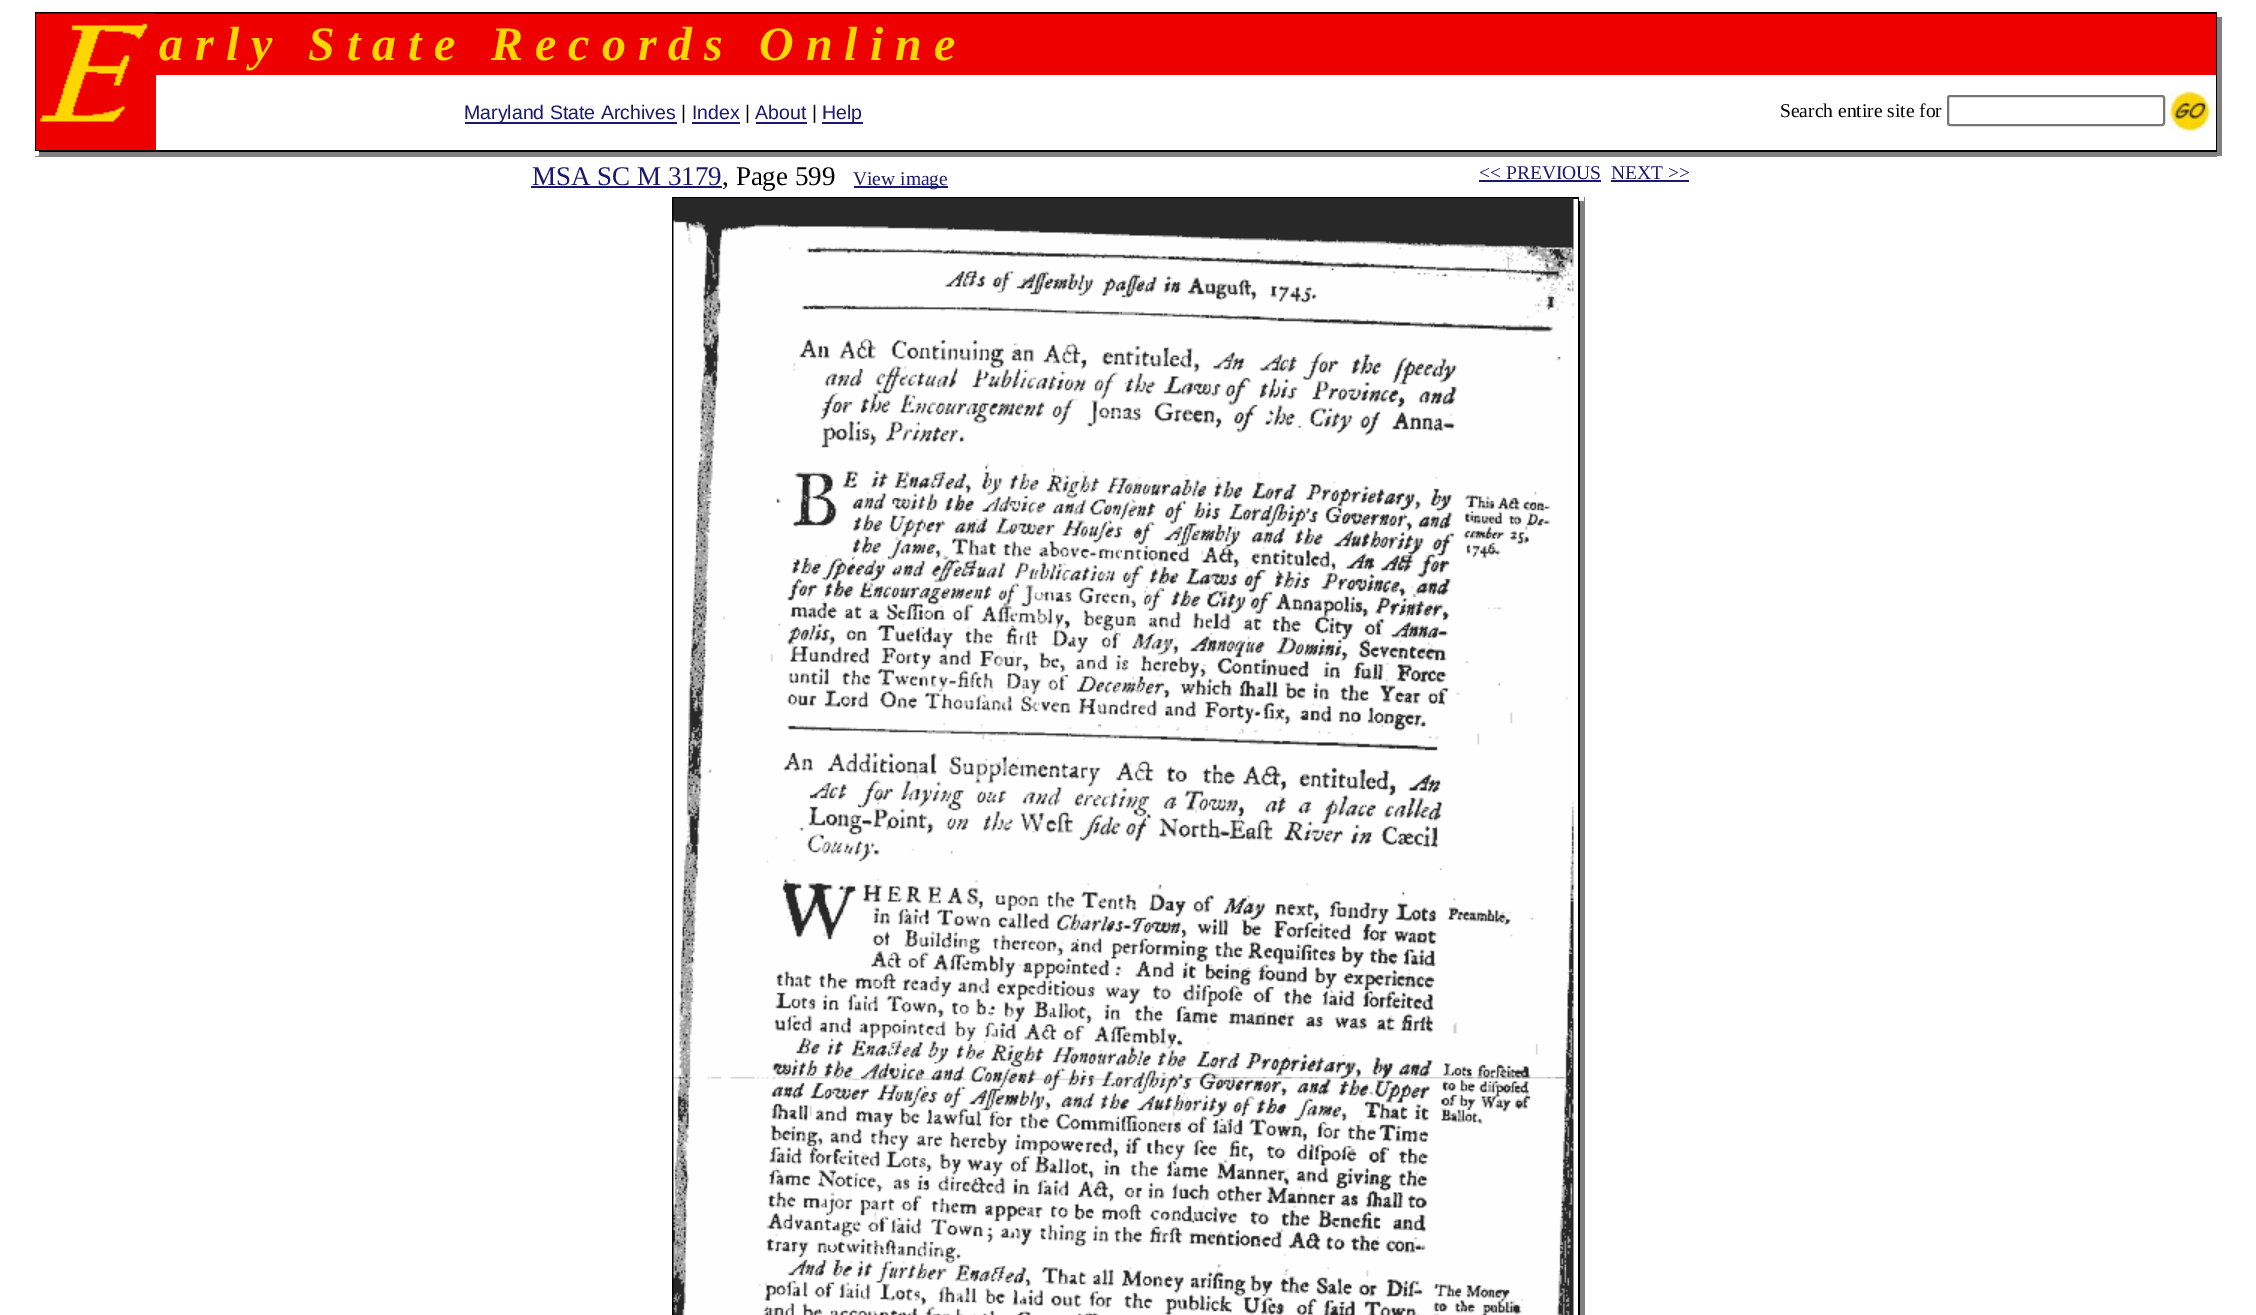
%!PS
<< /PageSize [2256 1315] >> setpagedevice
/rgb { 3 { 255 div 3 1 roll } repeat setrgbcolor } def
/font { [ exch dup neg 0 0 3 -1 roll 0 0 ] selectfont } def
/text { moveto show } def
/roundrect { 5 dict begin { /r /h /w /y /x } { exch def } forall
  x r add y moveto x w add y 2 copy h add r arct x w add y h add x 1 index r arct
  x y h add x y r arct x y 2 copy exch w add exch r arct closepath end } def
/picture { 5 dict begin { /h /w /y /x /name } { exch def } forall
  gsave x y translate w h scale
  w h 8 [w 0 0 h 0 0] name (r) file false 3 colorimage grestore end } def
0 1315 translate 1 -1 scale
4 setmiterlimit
255 255 255 rgb
0 0 2256 1315 rectfill
0 0 0 rgb
35 12 1 140 rectfill
36 12 2180 2 rectfill
2216 12 1 140 rectfill
128 128 128 rgb
2217 12 5 144 rectfill
255 255 255 rgb
2217 12 5 5 rectfill
238 0 0 rgb
36 122 120 28 rectfill
(img_01.rgb) 36 13 120 109 picture
156 14 2060 61 rectfill
25 25 112 rgb
465 122 212 2 rectfill
692 122 48 2 rectfill
756 122 51 2 rectfill
822 122 41 2 rectfill
118 118 118 rgb
2 setlinewidth
1948 96 216 29 2 roundrect stroke
(img_02.rgb) 2169 91 42 42 picture
0 0 0 rgb
36 150 2180 2 rectfill
128 128 128 rgb
35 152 2182 5 rectfill
255 255 255 rgb
35 151 4 5 rectfill
25 25 112 rgb
531 186 191 2 rectfill
854 186 94 2 rectfill
1479 180 122 2 rectfill
1611 180 78 2 rectfill
0 0 0 rgb
672 197 2 1118 rectfill
674 197 904 2 rectfill
1578 197 2 1118 rectfill
128 128 128 rgb
1580 197 5 1118 rectfill
255 255 255 rgb
1579 197 5 4 rectfill
(img_03.rgb) 673 198 901 1117 picture
/LiberationSerif-BoldItalic 48 font
255 215 0 rgb
(a r l y   S t a t e   R e c o r d s   O n l i n e) 159 60 text
/LiberationSans-Regular 19.5 font
25 25 112 rgb
(Maryland State Archives) 464 119 text
0 0 0 rgb
(|) 681 119 text
25 25 112 rgb
(Index) 692 119 text
0 0 0 rgb
(|) 745 119 text
25 25 112 rgb
(About) 755 119 text
0 0 0 rgb
(|) 812 119 text
25 25 112 rgb
(Help) 822 119 text
/LiberationSerif-Regular 19.5 font
0 0 0 rgb
(Search entire site for) 1780 117 text
/LiberationSerif-Regular 27 font
25 25 112 rgb
(MSA SC M 3179) 532 185 text
0 0 0 rgb
(, Page 599) 722 185 text
/LiberationSerif-Regular 19.5 font
25 25 112 rgb
(View image) 853 185 text
(<< PREVIOUS) 1479 179 text
(NEXT >>) 1611 179 text
showpage
